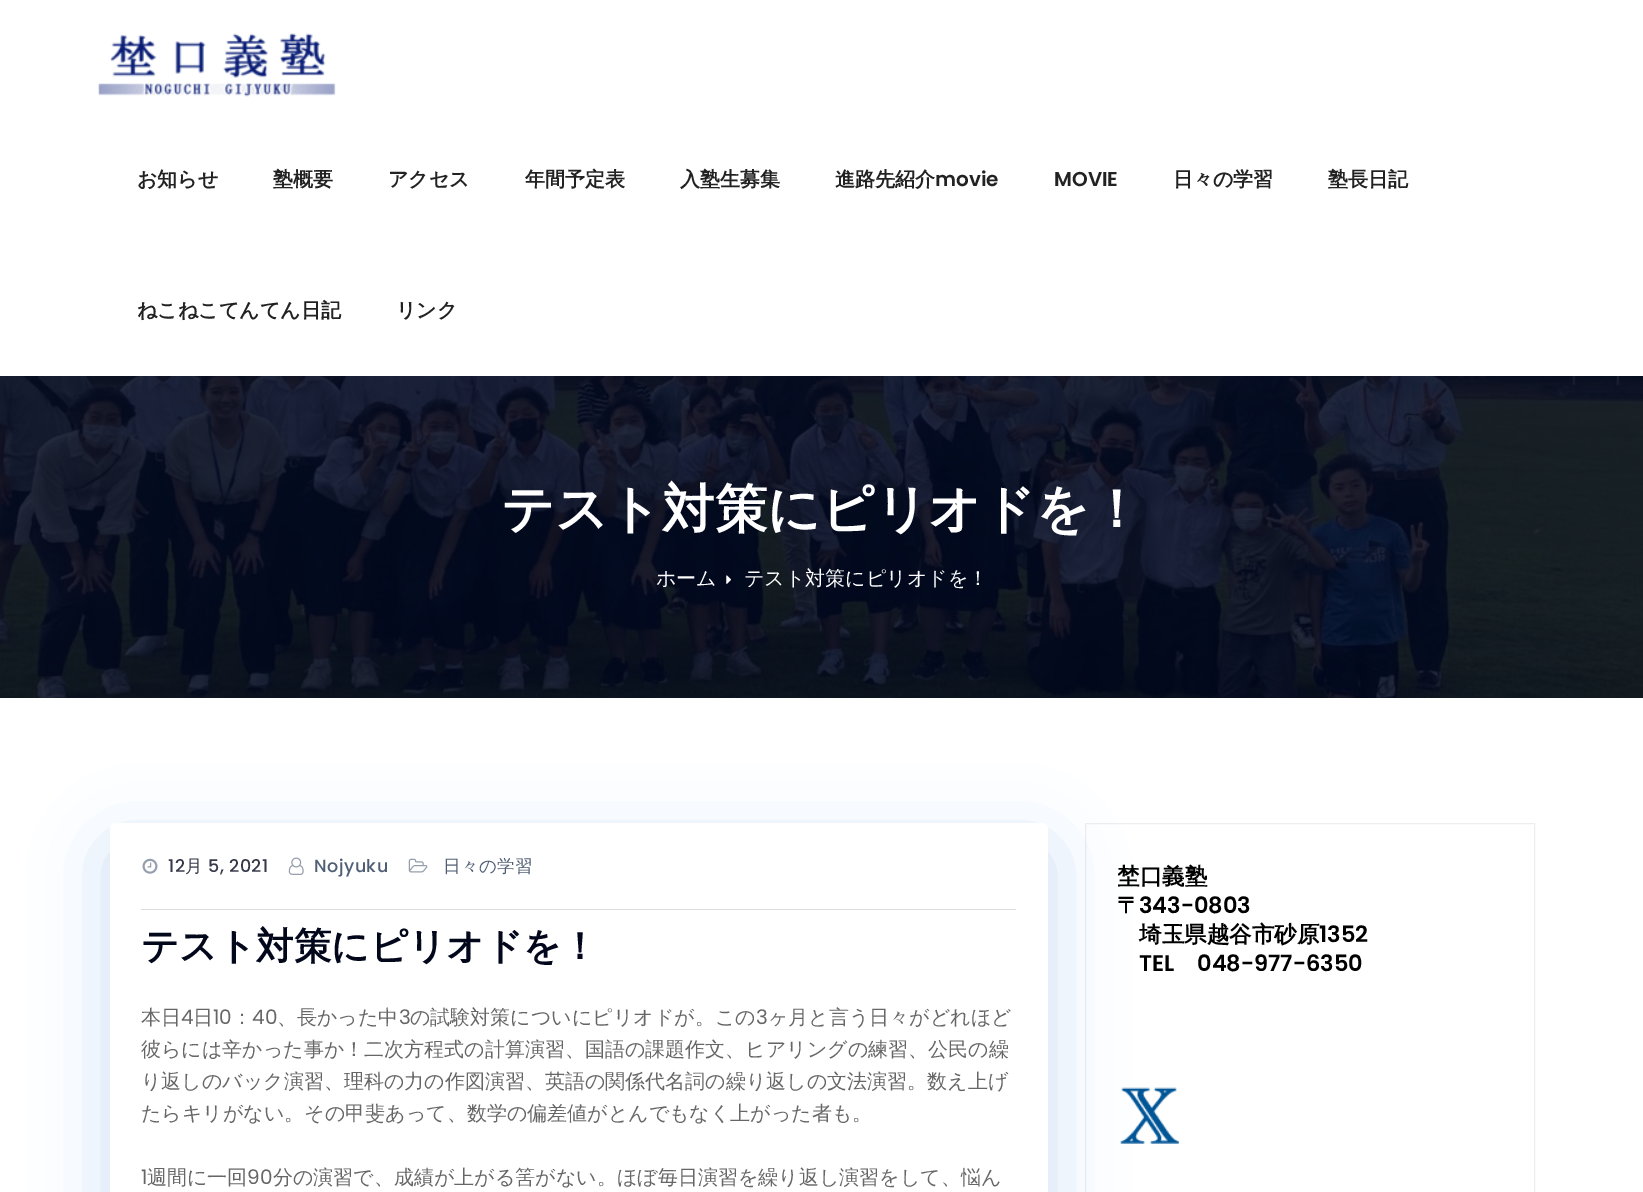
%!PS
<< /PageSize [1643 1192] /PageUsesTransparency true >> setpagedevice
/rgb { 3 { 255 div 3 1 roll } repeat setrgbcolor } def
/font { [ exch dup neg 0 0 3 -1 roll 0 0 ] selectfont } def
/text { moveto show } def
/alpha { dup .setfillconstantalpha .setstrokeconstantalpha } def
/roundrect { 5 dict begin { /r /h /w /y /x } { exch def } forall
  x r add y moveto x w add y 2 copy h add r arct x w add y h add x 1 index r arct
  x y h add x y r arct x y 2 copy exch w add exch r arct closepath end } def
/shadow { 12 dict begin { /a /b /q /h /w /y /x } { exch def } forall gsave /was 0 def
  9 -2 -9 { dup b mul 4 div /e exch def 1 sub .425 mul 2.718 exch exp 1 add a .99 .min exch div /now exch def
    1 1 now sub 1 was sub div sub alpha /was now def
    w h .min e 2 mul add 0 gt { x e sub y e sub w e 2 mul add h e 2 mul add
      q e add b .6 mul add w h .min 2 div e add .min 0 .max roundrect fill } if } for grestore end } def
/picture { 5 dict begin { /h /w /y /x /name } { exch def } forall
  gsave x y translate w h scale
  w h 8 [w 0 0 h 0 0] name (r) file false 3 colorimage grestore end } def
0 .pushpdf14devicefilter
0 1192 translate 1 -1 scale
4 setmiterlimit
255 255 255 rgb
0 0 1643 1192 rectfill
(img_01.rgb) 98 33 238 64 picture
(img_02.rgb) 0 376 1643 322 picture
(img_03.rgb) 726 575 5 9 picture
238 238 238 rgb
1085.5 823.5 449 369 rectstroke
(img_07.rgb) 1120 1087 59 57 picture
4 75 194 rgb
110 848 938 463 6 37.5 0.2 shadow
255 255 255 rgb
110 823 938 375 6 roundrect fill
220 220 220 rgb
141 909 875 1 rectfill
(img_04.rgb) 142 858 16 16 picture
(img_05.rgb) 288 857 16 18 picture
(img_06.rgb) 408 858 20 15 picture
/WenQuanYiZenHei-Bold 20 font
34 34 34 rgb
(お知らせ) 137 186 text
(塾概要) 273 186 text
(アクセス) 388 186 text
(年間予定表) 525 186 text
(入塾生募集) 680 186 text
(進路先紹介) 835 186 text
/Poppins-SemiBold 20 font
(movie) 935 186 text
(MOVIE) 1054 186 text
/WenQuanYiZenHei-Bold 20 font
(日々の学習) 1173 186 text
(塾長日記) 1328 186 text
(ねこねこてんてん日記) 137 317 text
(リンク) 396 317 text
/WenQuanYiZenHei-Bold 52.5 font
255 255 255 rgb
(テスト対策にピリオドを！) 501 527 text
/WenQuanYiZenHei-Medium 20 font
(ホーム) 656 585 text
(テスト対策にピリオドを！) 744 585 text
/Poppins-Medium 17.5 font
53 57 73 rgb
168 872 moveto 0.5 0 (12) ashow
/WenQuanYiZenHei-Medium 17.5 font
185 872 moveto 0.5 0 (月) ashow
/Poppins-Medium 17.5 font
208 872 moveto 0.5 0 (5, 2021) ashow
79 94 117 rgb
314 872 moveto 0.5 0 (Nojyuku) ashow
/WenQuanYiZenHei-Medium 17.5 font
443 872 moveto 0.5 0 (日々の学習) ashow
/WenQuanYiZenHei-Bold 37.5 font
2 7 27 rgb
(テスト対策にピリオドを！) 141 959 text
/WenQuanYiZenHei-Medium 20 font
102 102 102 rgb
(本日) 141 1024 text
/Poppins-Regular 20 font
(4) 181 1024 text
/WenQuanYiZenHei-Medium 20 font
(日) 193 1024 text
/Poppins-Regular 20 font
(10) 213 1024 text
/WenQuanYiZenHei-Medium 20 font
(：) 232 1024 text
/Poppins-Regular 20 font
(40) 252 1024 text
/WenQuanYiZenHei-Medium 20 font
(、長かった中) 277 1024 text
/Poppins-Regular 20 font
(3) 399 1024 text
/WenQuanYiZenHei-Medium 20 font
(の試験対策についにピリオドが。この) 410 1024 text
/Poppins-Regular 20 font
(3) 756 1024 text
/WenQuanYiZenHei-Medium 20 font
(ヶ月と言う日々がどれほど) 768 1024 text
(彼らには辛かった事か！二次方程式の計算演習、国語の課題作文、ヒアリングの練習、公民の繰) 141 1056 text
(り返しのバック演習、理科の力の作図演習、英語の関係代名詞の繰り返しの文法演習。数え上げ) 141 1088 text
(たらキリがない。その甲斐あって、数学の偏差値がとんでもなく上がった者も。) 141 1120 text
/Poppins-Regular 20 font
(1) 141 1184 text
/WenQuanYiZenHei-Medium 20 font
(週間に一回) 147 1184 text
/Poppins-Regular 20 font
(90) 247 1184 text
/WenQuanYiZenHei-Medium 20 font
(分の演習で、成績が上がる筈がない。ほぼ毎日演習を繰り返し演習をして、悩ん) 273 1184 text
gsave
1118 861 385 149 rectclip
/WenQuanYiZenHei-Bold 22.5 font
0 0 0 rgb
(埜口義塾) 1117 884 text
grestore
/WenQuanYiZenHei-Bold 22.5 font
0 0 0 rgb
(〒) 1117 913 text
/Poppins-SemiBold 22.5 font
(343-0803) 1139 913 text
/WenQuanYiZenHei-Bold 22.5 font
(埼玉県越谷市砂原) 1139 942 text
/Poppins-SemiBold 22.5 font
(1352) 1319 942 text
(TEL) 1139 971 text
(048-977-6350) 1197 971 text
.poppdf14devicefilter showpage
